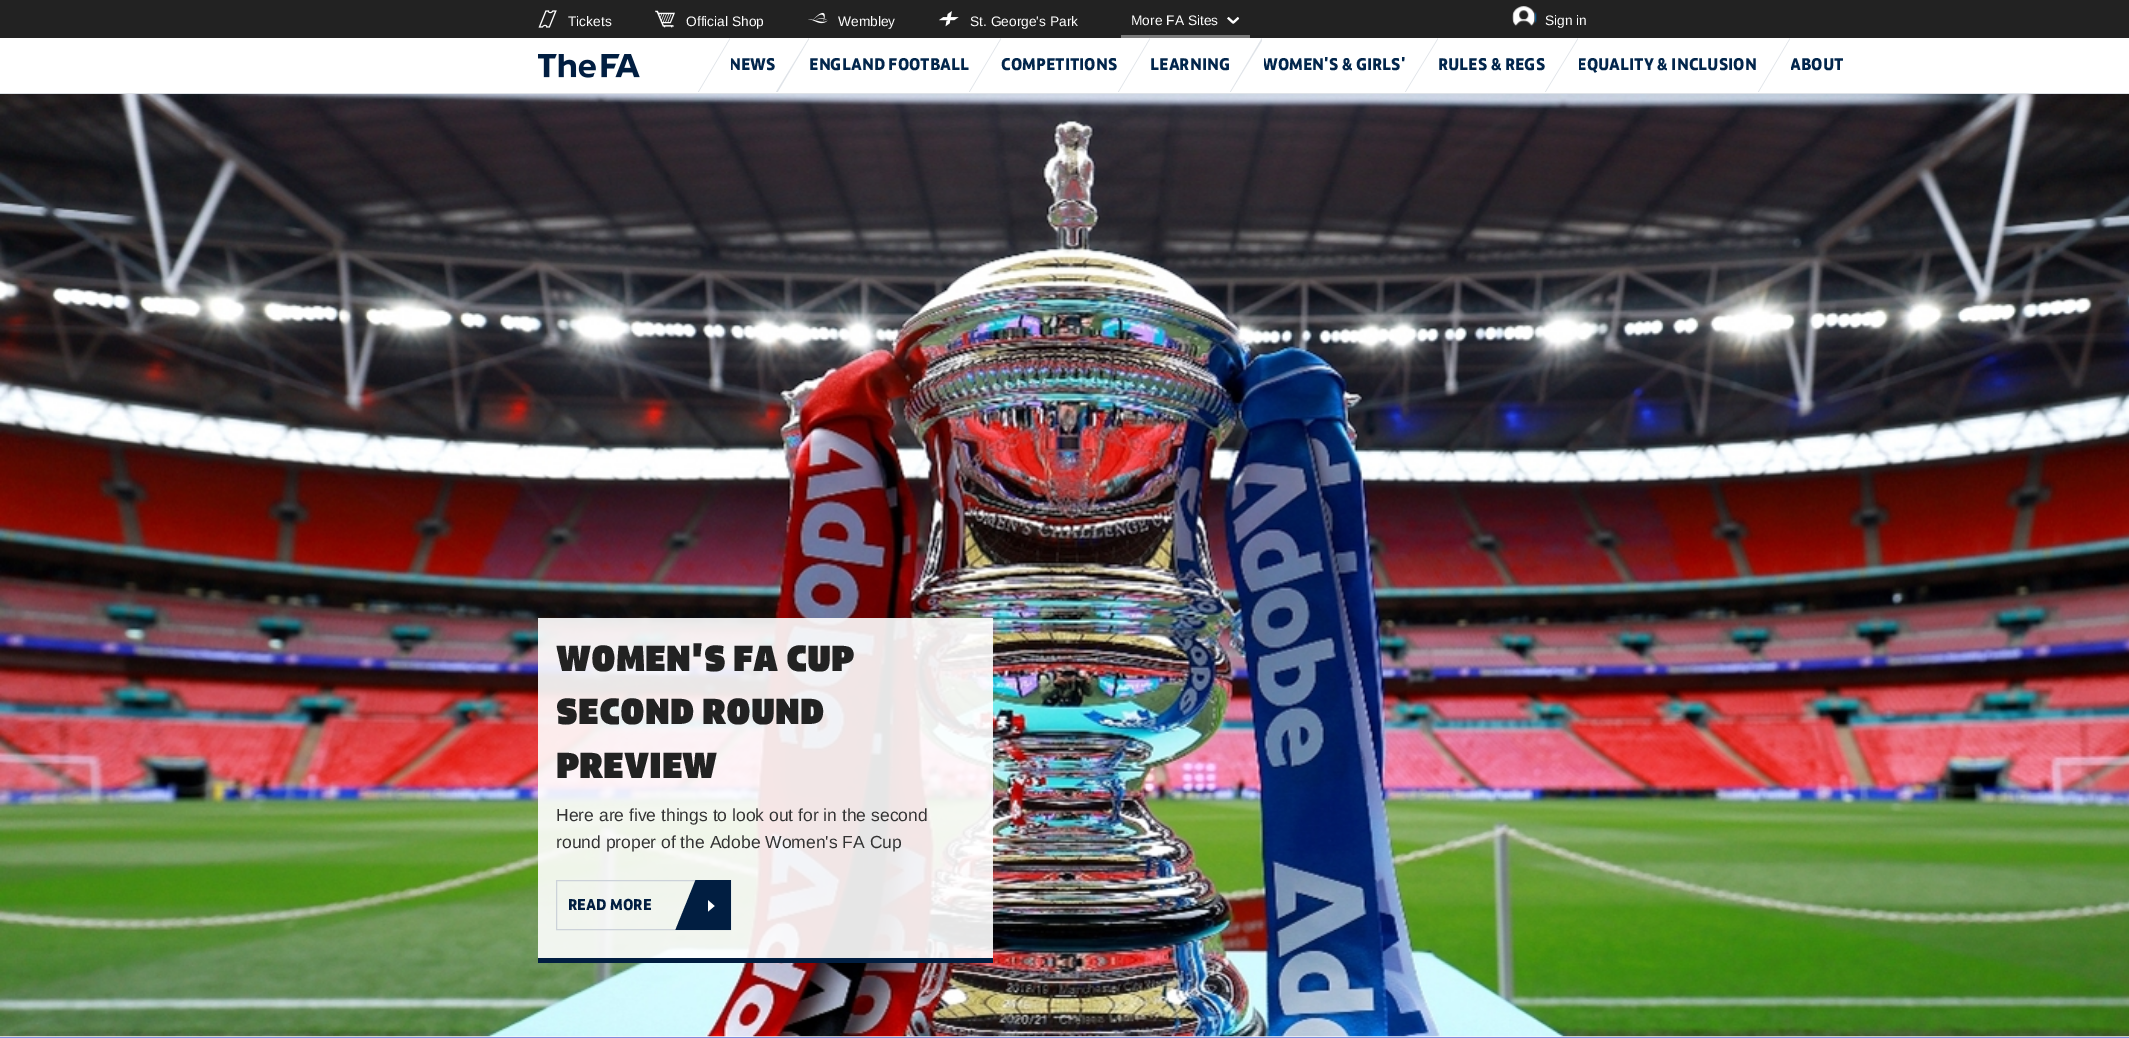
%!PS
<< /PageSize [2129 1038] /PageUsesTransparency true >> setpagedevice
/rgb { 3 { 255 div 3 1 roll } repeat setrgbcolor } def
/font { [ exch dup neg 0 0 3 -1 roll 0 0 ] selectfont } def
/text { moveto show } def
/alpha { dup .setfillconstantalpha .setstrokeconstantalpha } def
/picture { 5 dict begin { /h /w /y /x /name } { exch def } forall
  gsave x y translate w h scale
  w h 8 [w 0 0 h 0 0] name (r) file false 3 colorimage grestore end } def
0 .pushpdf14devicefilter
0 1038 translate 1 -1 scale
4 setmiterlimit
247 247 247 rgb
0 0 2129 1038 rectfill
34 34 34 rgb
0 0 2129 38 rectfill
(img_01.rgb) 538 10 19 18 picture
(img_02.rgb) 655 10 20 18 picture
(img_03.rgb) 808 12 20 12 picture
(img_04.rgb) 939 11 20 16 picture
122 122 122 rgb
1121 35 129 3 rectfill
(img_05.rgb) 1227 17 13 7 picture
(img_06.rgb) 1512 6 25 20 picture
255 255 255 rgb
0 38 2129 55 rectfill
223 227 232 rgb
730 92 moveto -32 0 rlineto 32 -54 rlineto closepath fill
809 92 moveto -33 0 rlineto 33 -54 rlineto closepath fill
1001 92 moveto -32 0 rlineto 32 -54 rlineto closepath fill
255 255 255 rgb
1002 92 moveto -32 0 rlineto 32 -54 rlineto closepath fill
223 227 232 rgb
1150 92 moveto -32 0 rlineto 32 -54 rlineto closepath fill
255 255 255 rgb
1151 92 moveto -32 0 rlineto 32 -54 rlineto closepath fill
223 227 232 rgb
1262 92 moveto -32 0 rlineto 32 -54 rlineto closepath fill
1438 92 moveto -33 0 rlineto 33 -54 rlineto closepath fill
255 255 255 rgb
1439 92 moveto -33 0 rlineto 33 -54 rlineto closepath fill
223 227 232 rgb
1578 92 moveto -33 0 rlineto 33 -54 rlineto closepath fill
(img_07.rgb) 538 54 102 24 picture
0 93 2129 1 rectfill
(img_08.rgb) 0 94 2129 943 picture
0.9 alpha
255 255 255 rgb
538 618 455 340 rectfill
1 alpha
1 30 65 rgb
538 958 455 5 rectfill
204 210 217 rgb
556.5 880.5 174 49 rectstroke
gsave
556 880 175 50 rectclip
1 30 65 rgb
696 879 moveto 112 0 rlineto -21 52 rlineto -112 0 rlineto closepath fill
grestore
(img_09.rgb) 708 900 7 12 picture
124 139 222 rgb
0 1037 2129 1 rectfill
/LiberationSans-Regular 13.75 font
255 255 255 rgb
(Tickets) 568 26 text
(Official Shop) 686 26 text
(Wembley) 838 26 text
(St. George's Park) 970 26 text
(More FA Sites) 1131 25 text
(Sign in) 1545 25 text
/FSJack-Bold 17.5 font
2 38 76 rgb
(NEWS) 729 70 text
255 255 255 rgb
731 92 moveto -32 0 rlineto 32 -54 rlineto closepath fill
2 38 76 rgb
(ENGLAND FOOTBALL) 809 70 text
255 255 255 rgb
810 92 moveto -32 0 rlineto 32 -54 rlineto closepath fill
2 38 76 rgb
(COMPETITIONS) 1001 70 text
(LEARNING) 1150 70 text
(WOMEN'S & GIRLS') 1262 70 text
255 255 255 rgb
1264 92 moveto -33 0 rlineto 33 -54 rlineto closepath fill
2 38 76 rgb
(RULES & REGS) 1438 70 text
(EQUALITY & INCLUSION) 1577 70 text
255 255 255 rgb
1579 92 moveto -33 0 rlineto 33 -54 rlineto closepath fill
2 38 76 rgb
(ABOUT) 1790 70 text
223 227 232 rgb
1790 92 moveto -32 0 rlineto 32 -54 rlineto closepath fill
255 255 255 rgb
1791 92 moveto -32 0 rlineto 32 -54 rlineto closepath fill
/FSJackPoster-Regular 37.5 font
34 34 34 rgb
(WOMEN'S FA CUP) 556 671 text
(SECOND ROUND) 556 724 text
(PREVIEW) 556 778 text
/LiberationSans-Regular 17.5 font
51 51 51 rgb
(Here are five things to look out for in the second) 556 821 text
(round proper of the Adobe Women's FA Cup) 556 848 text
/FSJack-Bold 16.25 font
1 30 65 rgb
(READ MORE) 568 910 text
.poppdf14devicefilter showpage
